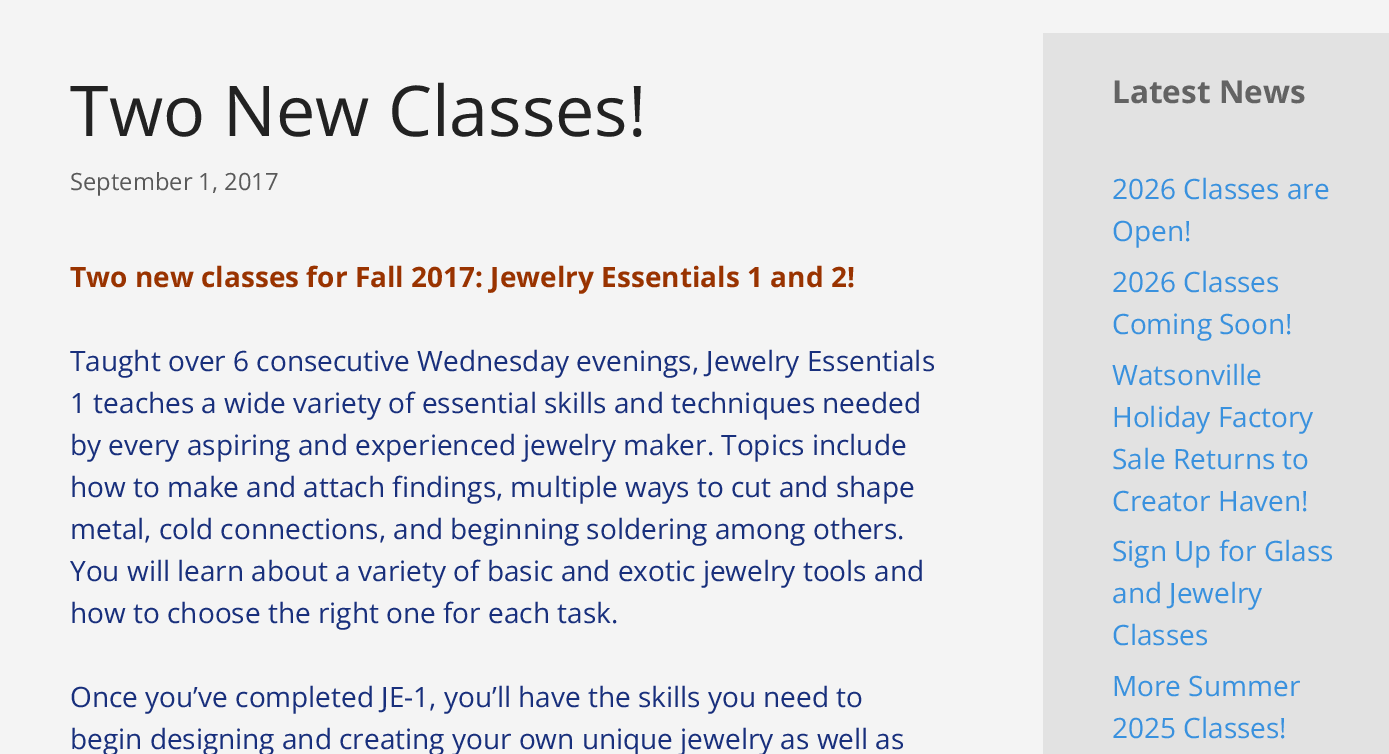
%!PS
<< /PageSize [1389 754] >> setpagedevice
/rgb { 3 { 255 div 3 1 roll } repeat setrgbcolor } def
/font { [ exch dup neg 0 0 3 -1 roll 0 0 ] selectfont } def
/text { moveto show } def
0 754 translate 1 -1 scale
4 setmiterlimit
244 244 244 rgb
0 0 1389 754 rectfill
226 226 226 rgb
1043 33 346 721 rectfill
/OpenSans-Regular 70 font
34 34 34 rgb
(Two New Classes!) 70 136 text
/OpenSans-Regular 23.75 font
89 89 89 rgb
(September 1, 2017) 70 190 text
/OpenSans-Bold 28 font
153 51 0 rgb
(Two new classes for Fall 2017: Jewelry Essentials 1 and 2!) 70 287 text
/OpenSans-Regular 28 font
24 47 124 rgb
(Taught over 6 consecutive Wednesday evenings, Jewelry Essentials) 70 371 text
(1 teaches a wide variety of essential skills and techniques needed) 70 413 text
(by every aspiring and experienced jewelry maker. Topics include) 70 455 text
(how to make and attach findings, multiple ways to cut and shape) 70 497 text
(metal, cold connections, and beginning soldering among others.) 70 539 text
(You will learn about a variety of basic and exotic jewelry tools and) 70 581 text
(how to choose the right one for each task.) 70 623 text
(Once you’ve completed JE-1, you’ll have the skills you need to) 70 707 text
(begin designing and creating your own unique jewelry as well as) 70 749 text
/OpenSans-Bold 31.5 font
99 99 99 rgb
(Latest News) 1112 103 text
/OpenSans-Regular 28 font
57 145 222 rgb
(2026 Classes are) 1112 199 text
(Open!) 1112 241 text
(2026 Classes) 1112 292 text
(Coming Soon!) 1112 334 text
(Watsonville) 1112 385 text
(Holiday Factory) 1112 427 text
(Sale Returns to) 1112 469 text
(Creator Haven!) 1112 511 text
(Sign Up for Glass) 1112 561 text
(and Jewelry) 1112 603 text
(Classes) 1112 645 text
(More Summer) 1112 696 text
(2025 Classes!) 1112 738 text
showpage
